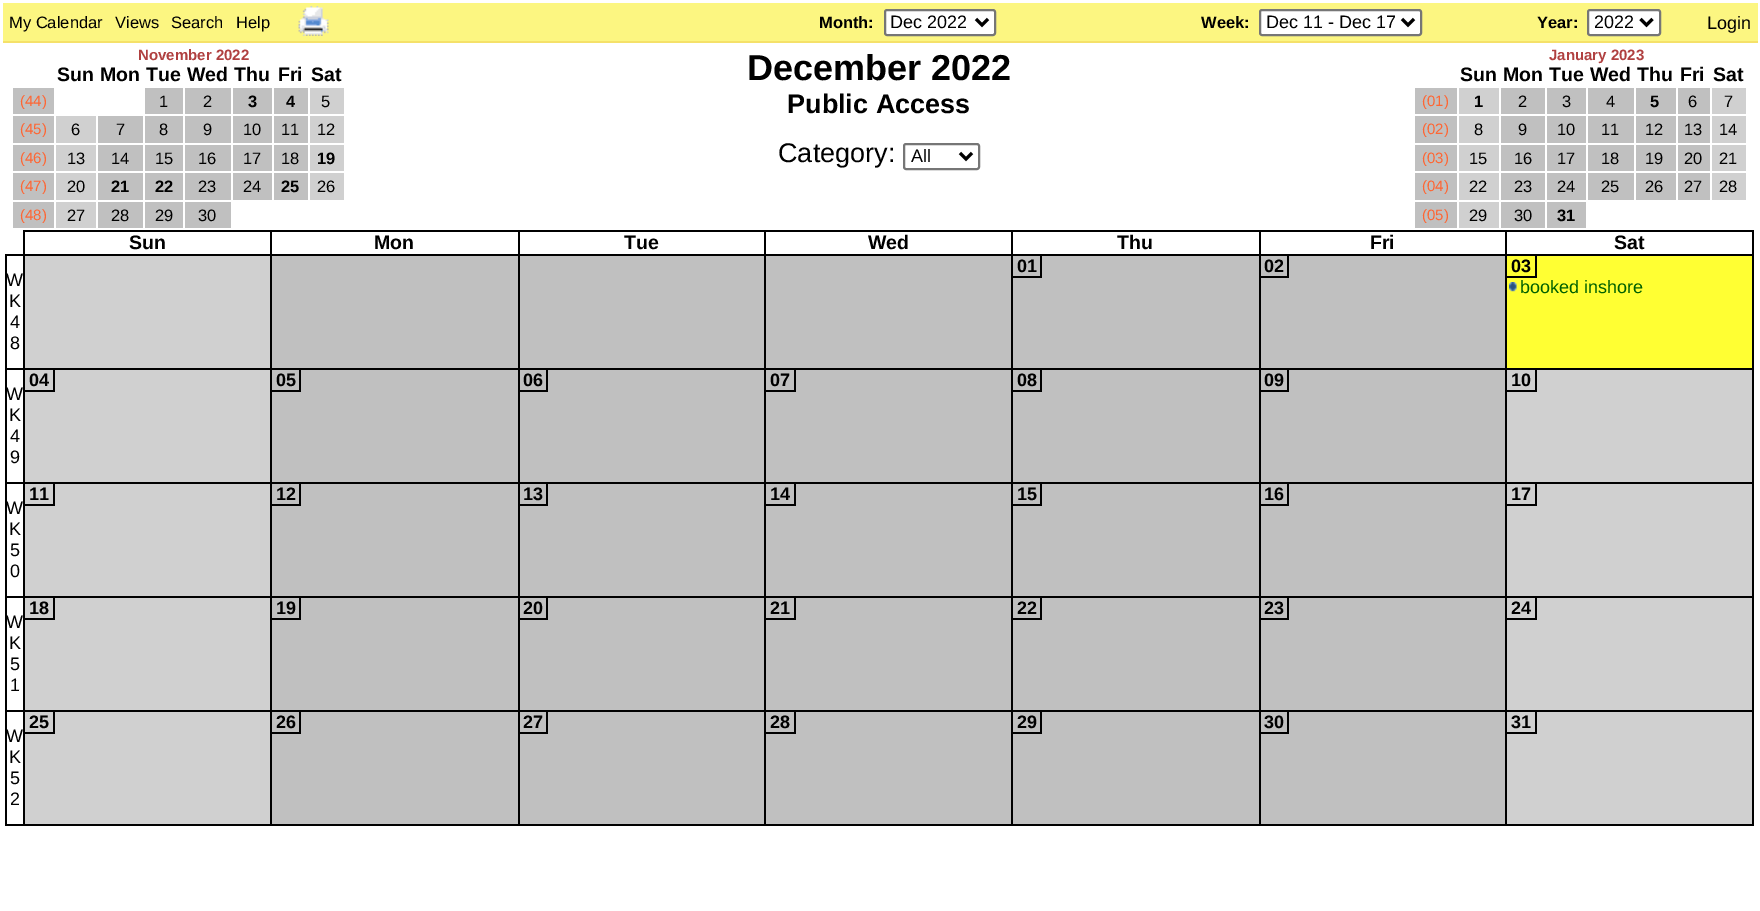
%!PS
<< /PageSize [1760 911] >> setpagedevice
/rgb { 3 { 255 div 3 1 roll } repeat setrgbcolor } def
/font { [ exch dup neg 0 0 3 -1 roll 0 0 ] selectfont } def
/text { moveto show } def
/roundrect { 5 dict begin { /r /h /w /y /x } { exch def } forall
  x r add y moveto x w add y 2 copy h add r arct x w add y h add x 1 index r arct
  x y h add x y r arct x y 2 copy exch w add exch r arct closepath end } def
/picture { 5 dict begin { /h /w /y /x /name } { exch def } forall
  gsave x y translate w h scale
  w h 8 [w 0 0 h 0 0] name (r) file false 3 colorimage grestore end } def
0 911 translate 1 -1 scale
4 setmiterlimit
255 255 255 rgb
0 0 1760 911 rectfill
252 246 129 rgb
3 3 1755 38 rectfill
245 225 105 rgb
3 41 1755 2 rectfill
(img_01.rgb) 298 6 31 30 picture
255 255 255 rgb
885 10 110 25 2 roundrect gsave fill grestore
118 118 118 rgb
2 setlinewidth
stroke
0 0 0 rgb
3 setlinewidth
976 19 moveto 6 6 rlineto 6 -6 rlineto stroke
255 255 255 rgb
1260 10 161 25 2 roundrect gsave fill grestore
118 118 118 rgb
2 setlinewidth
stroke
0 0 0 rgb
3 setlinewidth
1402 19 moveto 6 6 rlineto 6 -6 rlineto stroke
255 255 255 rgb
1588 10 72 25 2 roundrect gsave fill grestore
118 118 118 rgb
2 setlinewidth
stroke
0 0 0 rgb
3 setlinewidth
1640.5 19 moveto 6 6 rlineto 6 -6 rlineto stroke
192 192 192 rgb
13 88 41 26 rectfill
145 88 38 26 rectfill
185 88 46 26 rectfill
233 88 39 26 rectfill
274 88 34 26 rectfill
208 208 208 rgb
310 88 34 26 rectfill
192 192 192 rgb
13 116 41 27 rectfill
208 208 208 rgb
56 116 40 27 rectfill
192 192 192 rgb
98 116 45 27 rectfill
145 116 38 27 rectfill
185 116 46 27 rectfill
233 116 39 27 rectfill
274 116 34 27 rectfill
208 208 208 rgb
310 116 34 27 rectfill
192 192 192 rgb
13 145 41 26 rectfill
208 208 208 rgb
56 145 40 26 rectfill
192 192 192 rgb
98 145 45 26 rectfill
145 145 38 26 rectfill
185 145 46 26 rectfill
233 145 39 26 rectfill
274 145 34 26 rectfill
208 208 208 rgb
310 145 34 26 rectfill
192 192 192 rgb
13 173 41 27 rectfill
208 208 208 rgb
56 173 40 27 rectfill
192 192 192 rgb
98 173 45 27 rectfill
145 173 38 27 rectfill
185 173 46 27 rectfill
233 173 39 27 rectfill
274 173 34 27 rectfill
208 208 208 rgb
310 173 34 27 rectfill
192 192 192 rgb
13 202 41 26 rectfill
208 208 208 rgb
56 202 40 26 rectfill
192 192 192 rgb
98 202 45 26 rectfill
145 202 38 26 rectfill
185 202 46 26 rectfill
118 118 118 rgb
2 setlinewidth
904 144 75 25 2 roundrect stroke
0 0 0 rgb
3 setlinewidth
960 153 moveto 6 6 rlineto 6 -6 rlineto stroke
192 192 192 rgb
1415 88 42 26 rectfill
208 208 208 rgb
1459 88 40 26 rectfill
192 192 192 rgb
1501 88 44 26 rectfill
1547 88 39 26 rectfill
1588 88 46 26 rectfill
1636 88 40 26 rectfill
1678 88 32 26 rectfill
208 208 208 rgb
1712 88 34 26 rectfill
192 192 192 rgb
1415 116 42 27 rectfill
208 208 208 rgb
1459 116 40 27 rectfill
192 192 192 rgb
1501 116 44 27 rectfill
1547 116 39 27 rectfill
1588 116 46 27 rectfill
1636 116 40 27 rectfill
1678 116 32 27 rectfill
208 208 208 rgb
1712 116 34 27 rectfill
192 192 192 rgb
1415 145 42 26 rectfill
208 208 208 rgb
1459 145 40 26 rectfill
192 192 192 rgb
1501 145 44 26 rectfill
1547 145 39 26 rectfill
1588 145 46 26 rectfill
1636 145 40 26 rectfill
1678 145 32 26 rectfill
208 208 208 rgb
1712 145 34 26 rectfill
192 192 192 rgb
1415 173 42 27 rectfill
208 208 208 rgb
1459 173 40 27 rectfill
192 192 192 rgb
1501 173 44 27 rectfill
1547 173 39 27 rectfill
1588 173 46 27 rectfill
1636 173 40 27 rectfill
1678 173 32 27 rectfill
208 208 208 rgb
1712 173 34 27 rectfill
192 192 192 rgb
1415 202 42 26 rectfill
208 208 208 rgb
1459 202 40 26 rectfill
192 192 192 rgb
1501 202 44 26 rectfill
1547 202 39 26 rectfill
0 0 0 rgb
1752 230 2 595 rectfill
5 824 1749 2 rectfill
23 230 1729 2 rectfill
23 230 2 24 rectfill
270 230 2 24 rectfill
518 230 2 24 rectfill
764 230 2 24 rectfill
1011 230 2 24 rectfill
1259 230 2 24 rectfill
1505 230 2 24 rectfill
5 254 1747 2 rectfill
5 254 2 114 rectfill
208 208 208 rgb
25 256 245 112 rectfill
0 0 0 rgb
23 254 2 114 rectfill
192 192 192 rgb
272 256 246 112 rectfill
0 0 0 rgb
270 254 2 114 rectfill
192 192 192 rgb
520 256 244 112 rectfill
0 0 0 rgb
518 254 2 114 rectfill
192 192 192 rgb
766 256 245 112 rectfill
0 0 0 rgb
764 254 2 114 rectfill
192 192 192 rgb
1013 256 246 112 rectfill
0 0 0 rgb
1011 254 2 114 rectfill
1040 255 2 23 rectfill
1013 276 28 2 rectfill
192 192 192 rgb
1261 256 244 112 rectfill
0 0 0 rgb
1259 254 2 114 rectfill
1287 255 2 23 rectfill
1260 276 29 2 rectfill
255 255 51 rgb
1507 256 245 112 rectfill
0 0 0 rgb
1505 254 2 114 rectfill
1535 255 2 23 rectfill
1506 276 30 2 rectfill
(img_02.rgb) 1509 282 8 10 picture
208 208 208 rgb
25 370 245 112 rectfill
0 0 0 rgb
5 368 1747 2 rectfill
23 368 2 114 rectfill
53 369 2 23 rectfill
24 390 30 2 rectfill
192 192 192 rgb
272 370 246 112 rectfill
0 0 0 rgb
270 368 2 114 rectfill
299 369 2 23 rectfill
272 390 28 2 rectfill
192 192 192 rgb
520 370 244 112 rectfill
0 0 0 rgb
518 368 2 114 rectfill
546 369 2 23 rectfill
519 390 29 2 rectfill
192 192 192 rgb
766 370 245 112 rectfill
0 0 0 rgb
764 368 2 114 rectfill
794 369 2 23 rectfill
765 390 30 2 rectfill
192 192 192 rgb
1013 370 246 112 rectfill
0 0 0 rgb
1011 368 2 114 rectfill
1040 369 2 23 rectfill
1013 390 28 2 rectfill
192 192 192 rgb
1261 370 244 112 rectfill
0 0 0 rgb
1259 368 2 114 rectfill
1287 369 2 23 rectfill
1260 390 29 2 rectfill
208 208 208 rgb
1507 370 245 112 rectfill
0 0 0 rgb
1505 368 2 114 rectfill
1535 369 2 23 rectfill
1506 390 30 2 rectfill
5 368 2 114 rectfill
208 208 208 rgb
25 484 245 112 rectfill
0 0 0 rgb
5 482 1747 2 rectfill
23 482 2 114 rectfill
53 483 2 23 rectfill
24 504 30 2 rectfill
192 192 192 rgb
272 484 246 112 rectfill
0 0 0 rgb
270 482 2 114 rectfill
299 483 2 23 rectfill
272 504 28 2 rectfill
192 192 192 rgb
520 484 244 112 rectfill
0 0 0 rgb
518 482 2 114 rectfill
546 483 2 23 rectfill
519 504 29 2 rectfill
192 192 192 rgb
766 484 245 112 rectfill
0 0 0 rgb
764 482 2 114 rectfill
794 483 2 23 rectfill
765 504 30 2 rectfill
192 192 192 rgb
1013 484 246 112 rectfill
0 0 0 rgb
1011 482 2 114 rectfill
1040 483 2 23 rectfill
1013 504 28 2 rectfill
192 192 192 rgb
1261 484 244 112 rectfill
0 0 0 rgb
1259 482 2 114 rectfill
1287 483 2 23 rectfill
1260 504 29 2 rectfill
208 208 208 rgb
1507 484 245 112 rectfill
0 0 0 rgb
1505 482 2 114 rectfill
1535 483 2 23 rectfill
1506 504 30 2 rectfill
5 482 2 114 rectfill
208 208 208 rgb
25 598 245 112 rectfill
0 0 0 rgb
5 596 1747 2 rectfill
23 596 2 114 rectfill
53 597 2 23 rectfill
24 618 30 2 rectfill
192 192 192 rgb
272 598 246 112 rectfill
0 0 0 rgb
270 596 2 114 rectfill
299 597 2 23 rectfill
272 618 28 2 rectfill
192 192 192 rgb
520 598 244 112 rectfill
0 0 0 rgb
518 596 2 114 rectfill
546 597 2 23 rectfill
519 618 29 2 rectfill
192 192 192 rgb
766 598 245 112 rectfill
0 0 0 rgb
764 596 2 114 rectfill
794 597 2 23 rectfill
765 618 30 2 rectfill
192 192 192 rgb
1013 598 246 112 rectfill
0 0 0 rgb
1011 596 2 114 rectfill
1040 597 2 23 rectfill
1013 618 28 2 rectfill
192 192 192 rgb
1261 598 244 112 rectfill
0 0 0 rgb
1259 596 2 114 rectfill
1287 597 2 23 rectfill
1260 618 29 2 rectfill
208 208 208 rgb
1507 598 245 112 rectfill
0 0 0 rgb
1505 596 2 114 rectfill
1535 597 2 23 rectfill
1506 618 30 2 rectfill
5 596 2 114 rectfill
208 208 208 rgb
25 712 245 112 rectfill
0 0 0 rgb
5 710 1747 2 rectfill
23 710 2 114 rectfill
53 711 2 23 rectfill
24 732 30 2 rectfill
192 192 192 rgb
272 712 246 112 rectfill
0 0 0 rgb
270 710 2 114 rectfill
299 711 2 23 rectfill
272 732 28 2 rectfill
192 192 192 rgb
520 712 244 112 rectfill
0 0 0 rgb
518 710 2 114 rectfill
546 711 2 23 rectfill
519 732 29 2 rectfill
192 192 192 rgb
766 712 245 112 rectfill
0 0 0 rgb
764 710 2 114 rectfill
794 711 2 23 rectfill
765 732 30 2 rectfill
192 192 192 rgb
1013 712 246 112 rectfill
0 0 0 rgb
1011 710 2 114 rectfill
1040 711 2 23 rectfill
1013 732 28 2 rectfill
192 192 192 rgb
1261 712 244 112 rectfill
0 0 0 rgb
1259 710 2 114 rectfill
1287 711 2 23 rectfill
1260 732 29 2 rectfill
208 208 208 rgb
1507 712 245 112 rectfill
0 0 0 rgb
1505 710 2 114 rectfill
1535 711 2 23 rectfill
1506 732 30 2 rectfill
5 710 2 114 rectfill
/LiberationSans-Regular 16.5 font
(My Calendar) 9 28 text
(Views) 115 28 text
(Search) 171 28 text
(Help) 236 28 text
/LiberationSans-Bold 16.5 font
(Month:) 819 28 text
/LiberationSans-Regular 18 font
(Dec 2022) 890 28 text
/LiberationSans-Bold 16.5 font
(Week:) 1201 28 text
/LiberationSans-Regular 18 font
(Dec 11 - Dec 17) 1266 28 text
/LiberationSans-Bold 16.5 font
(Year:) 1537 28 text
gsave
1595 11 40 24 rectclip
/LiberationSans-Regular 18 font
(2022) 1594 28 text
grestore
/LiberationSans-Regular 18 font
(Login) 1707 29 text
/LiberationSans-Bold 15 font
176 64 64 rgb
(November 2022) 138 60 text
/LiberationSans-Bold 19.5 font
0 0 0 rgb
(Sun) 57 81 text
(Mon) 100 81 text
(Tue) 146 81 text
(Wed) 187 81 text
(Thu) 234 81 text
(Fri) 278 81 text
(Sat) 311 81 text
/LiberationSans-Regular 15 font
255 102 51 rgb
(\(44\)) 20 106 text
/LiberationSans-Regular 16.5 font
0 0 0 rgb
(1) 159 107 text
(2) 203 107 text
/LiberationSans-Bold 16.5 font
(3) 248 107 text
(4) 286 107 text
/LiberationSans-Regular 16.5 font
(5) 321 107 text
/LiberationSans-Regular 15 font
255 102 51 rgb
(\(45\)) 20 134 text
/LiberationSans-Regular 16.5 font
0 0 0 rgb
(6) 71 135 text
(7) 116 135 text
(8) 159 135 text
(9) 203 135 text
(10) 243 135 text
(11) 281 135 text
(12) 317 135 text
/LiberationSans-Regular 15 font
255 102 51 rgb
(\(46\)) 20 163 text
/LiberationSans-Regular 16.5 font
0 0 0 rgb
(13) 67 164 text
(14) 111 164 text
(15) 155 164 text
(16) 198 164 text
(17) 243 164 text
(18) 281 164 text
/LiberationSans-Bold 16.5 font
(19) 317 164 text
/LiberationSans-Regular 15 font
255 102 51 rgb
(\(47\)) 20 191 text
/LiberationSans-Regular 16.5 font
0 0 0 rgb
(20) 67 192 text
/LiberationSans-Bold 16.5 font
(21) 111 192 text
(22) 155 192 text
/LiberationSans-Regular 16.5 font
(23) 198 192 text
(24) 243 192 text
/LiberationSans-Bold 16.5 font
(25) 281 192 text
/LiberationSans-Regular 16.5 font
(26) 317 192 text
/LiberationSans-Regular 15 font
255 102 51 rgb
(\(48\)) 20 220 text
/LiberationSans-Regular 16.5 font
0 0 0 rgb
(27) 67 221 text
(28) 111 221 text
(29) 155 221 text
(30) 198 221 text
/LiberationSans-Bold 36 font
(December 2022) 747 80 text
/LiberationSans-Bold 27 font
(Public Access) 787 113 text
/LiberationSans-Regular 27 font
(Category:) 778 162 text
/LiberationSans-Regular 18 font
(All) 911 162 text
/LiberationSans-Bold 15 font
176 64 64 rgb
(January 2023) 1549 60 text
/LiberationSans-Bold 19.5 font
0 0 0 rgb
(Sun) 1460 81 text
(Mon) 1503 81 text
(Tue) 1549 81 text
(Wed) 1590 81 text
(Thu) 1637 81 text
(Fri) 1680 81 text
(Sat) 1713 81 text
/LiberationSans-Regular 15 font
255 102 51 rgb
(\(01\)) 1422 106 text
/LiberationSans-Bold 16.5 font
0 0 0 rgb
(1) 1474 107 text
/LiberationSans-Regular 16.5 font
(2) 1518 107 text
(3) 1562 107 text
(4) 1606 107 text
/LiberationSans-Bold 16.5 font
(5) 1650 107 text
/LiberationSans-Regular 16.5 font
(6) 1688 107 text
(7) 1724 107 text
/LiberationSans-Regular 15 font
255 102 51 rgb
(\(02\)) 1422 134 text
/LiberationSans-Regular 16.5 font
0 0 0 rgb
(8) 1474 135 text
(9) 1518 135 text
(10) 1557 135 text
(11) 1601 135 text
(12) 1645 135 text
(13) 1684 135 text
(14) 1719 135 text
/LiberationSans-Regular 15 font
255 102 51 rgb
(\(03\)) 1422 163 text
/LiberationSans-Regular 16.5 font
0 0 0 rgb
(15) 1469 164 text
(16) 1514 164 text
(17) 1557 164 text
(18) 1601 164 text
(19) 1645 164 text
(20) 1684 164 text
(21) 1719 164 text
/LiberationSans-Regular 15 font
255 102 51 rgb
(\(04\)) 1422 191 text
/LiberationSans-Regular 16.5 font
0 0 0 rgb
(22) 1469 192 text
(23) 1514 192 text
(24) 1557 192 text
(25) 1601 192 text
(26) 1645 192 text
(27) 1684 192 text
(28) 1719 192 text
/LiberationSans-Regular 15 font
255 102 51 rgb
(\(05\)) 1422 220 text
/LiberationSans-Regular 16.5 font
0 0 0 rgb
(29) 1469 221 text
(30) 1514 221 text
/LiberationSans-Bold 16.5 font
(31) 1557 221 text
/LiberationSans-Bold 19.5 font
(Sun) 129 249 text
(Mon) 374 249 text
(Tue) 624 249 text
(Wed) 868 249 text
(Thu) 1117 249 text
(Fri) 1370 249 text
(Sat) 1614 249 text
/LiberationSans-Regular 18 font
(W) 6 286 text
(K) 9 307 text
(4) 10 328 text
(8) 10 349 text
/LiberationSans-Bold 18 font
(01) 1017 272 text
(02) 1264 272 text
(03) 1511 272 text
/LiberationSans-Regular 18 font
0 96 0 rgb
(booked inshore) 1520 293 text
/LiberationSans-Bold 18 font
0 0 0 rgb
(04) 29 386 text
(05) 276 386 text
(06) 523 386 text
(07) 770 386 text
(08) 1017 386 text
(09) 1264 386 text
(10) 1511 386 text
/LiberationSans-Regular 18 font
(W) 6 400 text
(K) 9 421 text
(4) 10 442 text
(9) 10 463 text
/LiberationSans-Bold 18 font
(11) 29 500 text
(12) 276 500 text
(13) 523 500 text
(14) 770 500 text
(15) 1017 500 text
(16) 1264 500 text
(17) 1511 500 text
/LiberationSans-Regular 18 font
(W) 6 514 text
(K) 9 535 text
(5) 10 556 text
(0) 10 577 text
/LiberationSans-Bold 18 font
(18) 29 614 text
(19) 276 614 text
(20) 523 614 text
(21) 770 614 text
(22) 1017 614 text
(23) 1264 614 text
(24) 1511 614 text
/LiberationSans-Regular 18 font
(W) 6 628 text
(K) 9 649 text
(5) 10 670 text
(1) 10 691 text
/LiberationSans-Bold 18 font
(25) 29 728 text
(26) 276 728 text
(27) 523 728 text
(28) 770 728 text
(29) 1017 728 text
(30) 1264 728 text
(31) 1511 728 text
/LiberationSans-Regular 18 font
(W) 6 742 text
(K) 9 763 text
(5) 10 784 text
(2) 10 805 text
showpage
